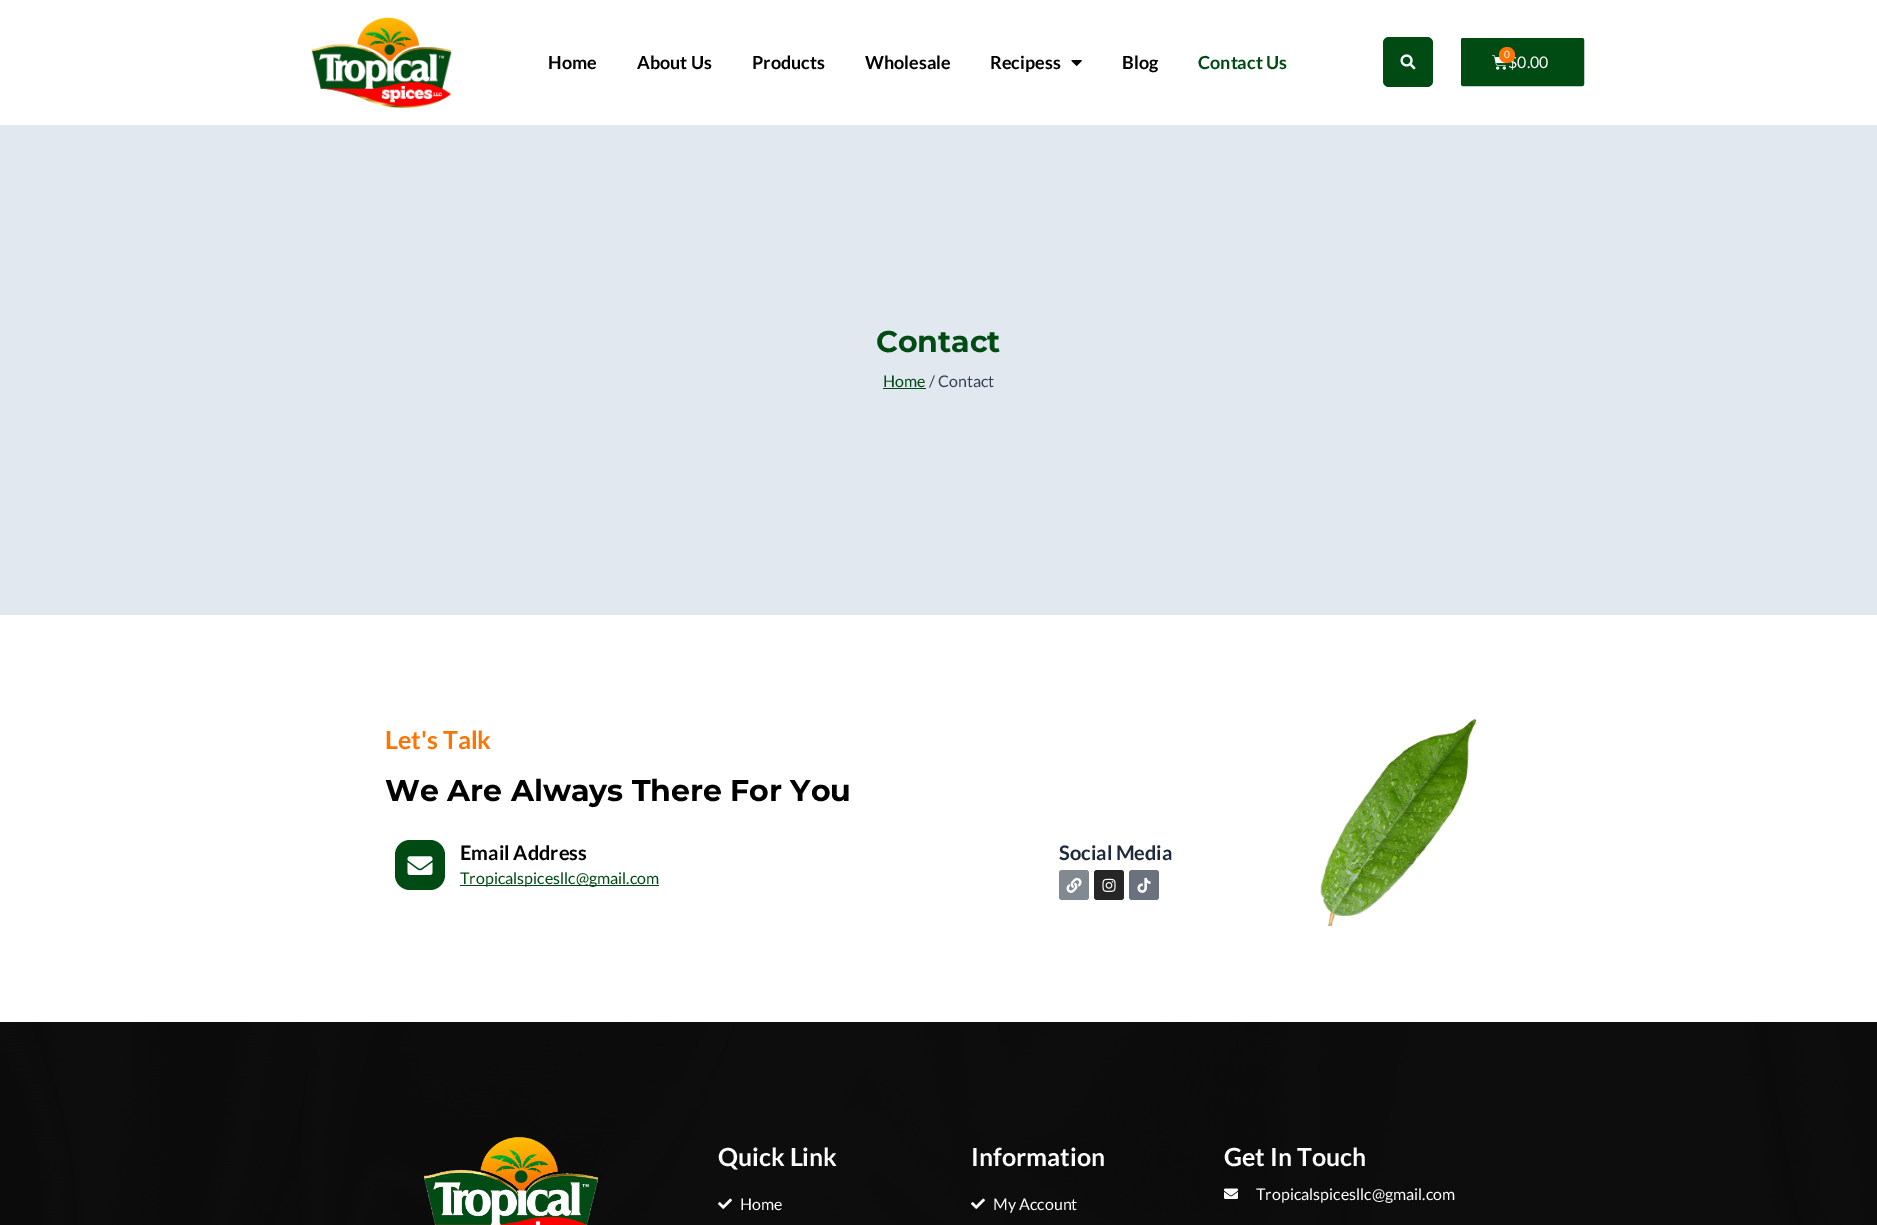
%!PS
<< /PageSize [1877 1225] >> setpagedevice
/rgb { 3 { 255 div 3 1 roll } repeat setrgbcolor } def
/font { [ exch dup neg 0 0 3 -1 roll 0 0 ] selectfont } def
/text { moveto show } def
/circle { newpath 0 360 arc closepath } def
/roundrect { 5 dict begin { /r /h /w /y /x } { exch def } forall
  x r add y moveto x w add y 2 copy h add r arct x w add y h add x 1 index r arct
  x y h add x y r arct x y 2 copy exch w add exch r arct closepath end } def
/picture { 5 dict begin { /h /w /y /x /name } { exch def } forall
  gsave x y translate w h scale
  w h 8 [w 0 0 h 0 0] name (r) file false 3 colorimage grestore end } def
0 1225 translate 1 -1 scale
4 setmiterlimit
255 255 255 rgb
0 0 1877 1225 rectfill
(img_01.rgb) 311 17 141 92 picture
(img_02.rgb) 1071 60 11 6 picture
0 75 19 rgb
1383 37 50 50 6 roundrect fill
(img_03.rgb) 1400 54 16 16 picture
1461.5 38.5 122 47 1.5 roundrect gsave fill grestore
stroke
(img_04.rgb) 1492 55 15 15 picture
226 232 240 rgb
0 125 1877 490 rectfill
0 75 19 rgb
883 388 43 1 rectfill
(img_05.rgb) 1320 718 157 208 picture
395 840 50 50 15 roundrect fill
(img_06.rgb) 407 856 26 19 picture
460 885 199 1 rectfill
129 138 145 rgb
1059 870 30 30 3 roundrect fill
(img_07.rgb) 1066 877 16 16 picture
38 38 38 rgb
1094 870 30 30 3 roundrect fill
(img_08.rgb) 1102 878 14 14 picture
105 114 125 rgb
1129 870 30 30 3 roundrect fill
(img_09.rgb) 1137 877 14 16 picture
0 0 0 rgb
0 1022 1877 203 rectfill
(img_10.rgb) 0 1022 1877 203 picture
(img_11.rgb) 423 1137 176 88 picture
(img_12.rgb) 718 1198 14 11 picture
(img_13.rgb) 971 1198 14 11 picture
(img_14.rgb) 1224 1188 14 11 picture
/Lato-Bold 18 font
(Home) 548 69 text
(About Us) 637 69 text
(Products) 752 69 text
(Wholesale) 865 69 text
(Recipess) 990 69 text
(Blog) 1122 69 text
0 75 19 rgb
(Contact Us) 1198 69 text
/Lato-Regular 16 font
255 255 255 rgb
($0.00) 1508 68 text
253 116 0 rgb
1507 55 8 circle fill
/Lato-Regular 10 font
255 255 255 rgb
(0) 1504 58 text
/Montserrat-Bold 30 font
0 75 19 rgb
(Contact) 876 352 text
/Lato-Regular 16 font
(Home) 883 387 text
51 65 85 rgb
(/ Contact) 929 387 text
/Lato-Bold 25 font
253 116 0 rgb
(Let's Talk) 385 749 text
/Montserrat-Bold 30 font
0 0 0 rgb
(We Are Always There For You) 385 801 text
/Lato-Bold 20 font
(Email Address) 460 860 text
/Lato-Regular 16 font
0 75 19 rgb
(Tropicalspicesllc@gmail.com) 460 884 text
/Lato-Bold 20 font
30 41 59 rgb
(Social Media) 1059 860 text
/Lato-Bold 25 font
255 255 255 rgb
(Quick Link) 718 1166 text
/Lato-Regular 16 font
(Home) 740 1210 text
/Lato-Bold 25 font
(Information) 971 1166 text
/Lato-Regular 16 font
(My Account) 993 1210 text
/Lato-Bold 25 font
(Get In Touch) 1224 1166 text
/Lato-Regular 16 font
(Tropicalspicesllc@gmail.com) 1256 1200 text
showpage
